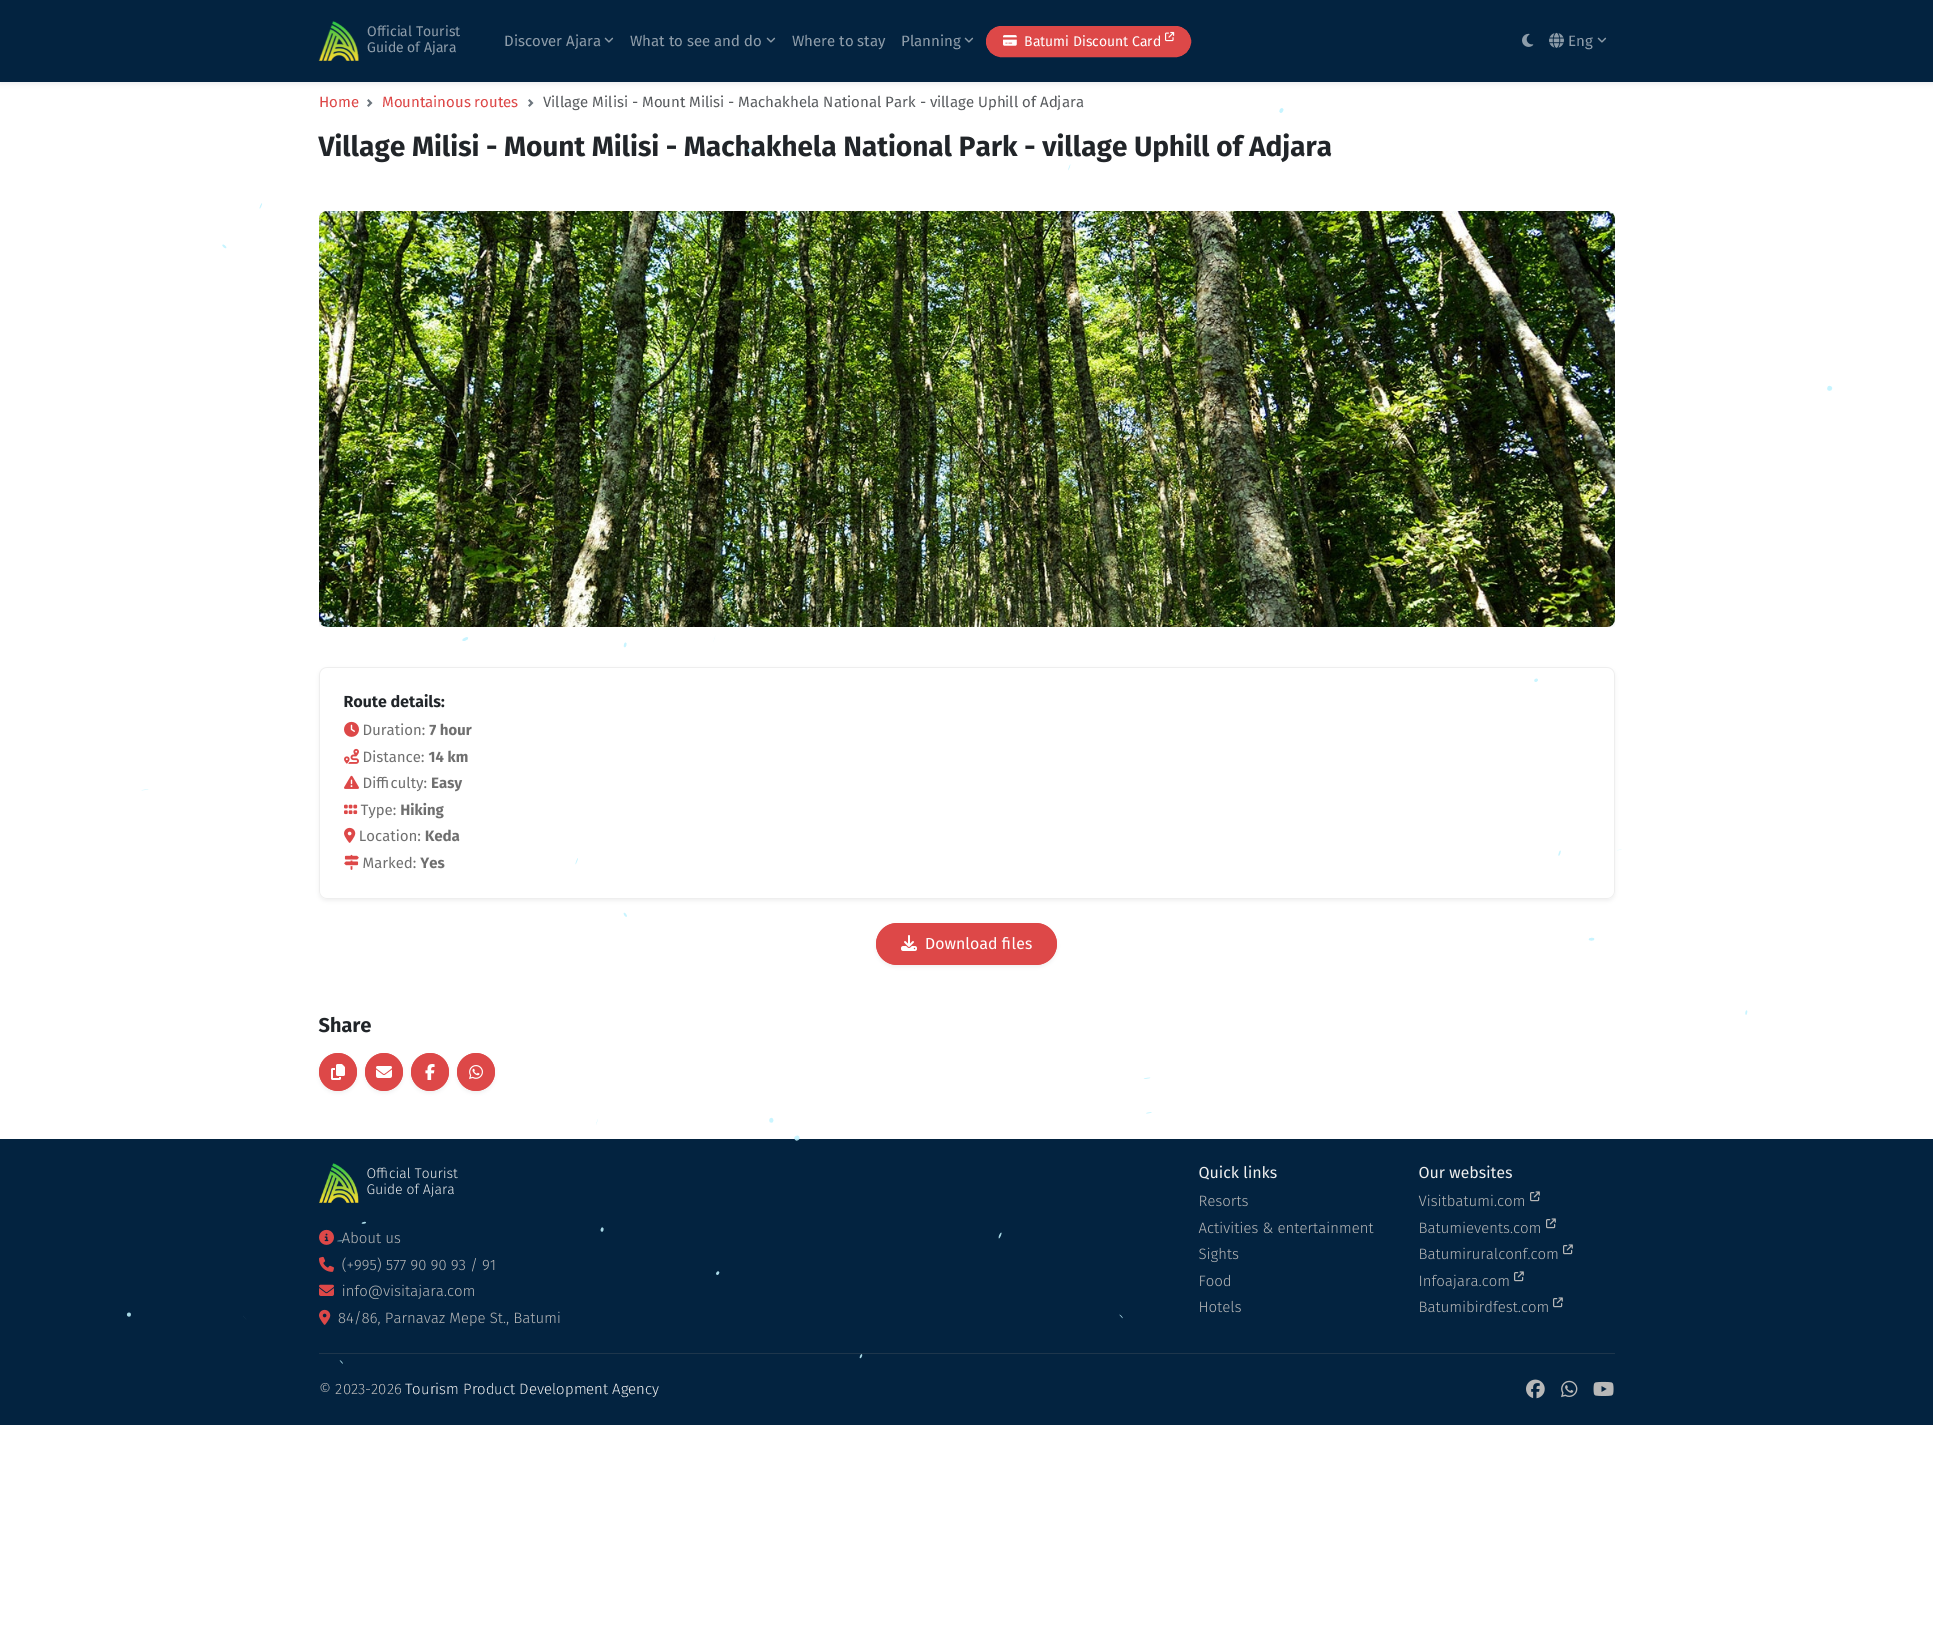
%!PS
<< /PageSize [1933 1633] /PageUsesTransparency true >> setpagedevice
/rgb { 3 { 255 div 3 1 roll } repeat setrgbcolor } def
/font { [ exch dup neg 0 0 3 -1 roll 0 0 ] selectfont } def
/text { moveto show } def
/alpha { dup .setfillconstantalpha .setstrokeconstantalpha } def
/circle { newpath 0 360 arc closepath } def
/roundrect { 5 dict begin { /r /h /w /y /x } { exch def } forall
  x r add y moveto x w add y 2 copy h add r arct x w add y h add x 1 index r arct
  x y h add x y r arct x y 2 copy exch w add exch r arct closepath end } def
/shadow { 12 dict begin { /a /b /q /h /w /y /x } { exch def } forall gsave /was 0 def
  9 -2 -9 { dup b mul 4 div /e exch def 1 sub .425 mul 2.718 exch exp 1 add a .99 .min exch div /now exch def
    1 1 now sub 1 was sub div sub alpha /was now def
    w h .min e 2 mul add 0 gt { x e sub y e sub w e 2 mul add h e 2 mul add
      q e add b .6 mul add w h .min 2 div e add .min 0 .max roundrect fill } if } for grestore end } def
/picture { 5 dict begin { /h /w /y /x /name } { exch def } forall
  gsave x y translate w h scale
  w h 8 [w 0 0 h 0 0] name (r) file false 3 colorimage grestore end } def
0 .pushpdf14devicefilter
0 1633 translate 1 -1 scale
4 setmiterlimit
255 255 255 rgb
0 0 1933 1633 rectfill
33 37 41 rgb
0 2 1933 82 0 2 0.07 shadow
3 35 64 rgb
0 0 1933 82 rectfill
(img_01.rgb) 318 21 41 40 picture
(img_02.rgb) 604 37 10 6 picture
(img_02.rgb) 766 37 10 6 picture
(img_02.rgb) 964 37 10 6 picture
221 72 72 rgb
986.5 26.5 204 30 15 roundrect gsave fill grestore
stroke
(img_03.rgb) 1003 35 14 11 picture
(img_04.rgb) 1165 31 10 11 picture
(img_05.rgb) 1522 33 12 14 picture
(img_06.rgb) 1549 32 15 16 picture
(img_02.rgb) 1597 37 10 6 picture
(img_07.rgb) 367 99 6 8 picture
(img_07.rgb) 528 99 6 8 picture
gsave
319 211 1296 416 rectclip
33 37 41 rgb
319 213 1296 416 8 2 0.07 shadow
grestore
(img_08.rgb) 319 211 1296 416 picture
33 37 41 rgb
319 669 1296 232 8 2 0.07 shadow
255 255 255 rgb
319.5 667.5 1295 231 7.5 roundrect gsave fill grestore
238 238 238 rgb
stroke
(img_09.rgb) 344 721 15 16 picture
(img_10.rgb) 344 748 15 16 picture
(img_11.rgb) 344 775 15 14 picture
(img_12.rgb) 344 804 14 11 picture
(img_13.rgb) 344 827 12 16 picture
(img_14.rgb) 344 854 15 16 picture
33 37 41 rgb
876 925 181 42 21 2 0.07 shadow
221 72 72 rgb
876.5 923.5 180 41 20.5 roundrect gsave fill grestore
stroke
(img_15.rgb) 901 935 16 16 picture
33 37 41 rgb
319 1055 38 38 19 2 0.07 shadow
221 72 72 rgb
338 1072 18.5 circle gsave fill grestore
stroke
(img_16.rgb) 331 1064 14 16 picture
33 37 41 rgb
365 1055 38 38 19 2 0.07 shadow
221 72 72 rgb
384 1072 18.5 circle gsave fill grestore
stroke
(img_17.rgb) 376 1066 16 12 picture
33 37 41 rgb
411 1055 38 38 19 2 0.07 shadow
221 72 72 rgb
430 1072 18.5 circle gsave fill grestore
stroke
(img_18.rgb) 425 1064 10 16 picture
33 37 41 rgb
457 1055 38 38 19 2 0.07 shadow
221 72 72 rgb
476 1072 18.5 circle gsave fill grestore
stroke
(img_19.rgb) 469 1065 14 14 picture
3 35 64 rgb
0 1139 1933 286 rectfill
(img_20.rgb) 319 1163 40 40 picture
(img_21.rgb) 319 1229 15 16 picture
(img_22.rgb) 319 1256 15 16 picture
(img_23.rgb) 319 1284 15 12 picture
(img_24.rgb) 319 1309 12 16 picture
(img_25.rgb) 1530 1191 10 11 picture
(img_25.rgb) 1546 1218 10 11 picture
(img_25.rgb) 1563 1244 10 11 picture
(img_25.rgb) 1514 1271 10 11 picture
(img_25.rgb) 1553 1297 10 11 picture
30 54 76 rgb
319 1353 1296 1 rectfill
(img_26.rgb) 1526 1379 19 20 picture
(img_27.rgb) 1561 1380 17 18 picture
(img_28.rgb) 1593 1381 21 15 picture
/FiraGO-Regular 14 font
142 156 169 rgb
(Official Tourist) 367 36 text
(Guide of Ajara) 367 52 text
/FiraGO-Regular 15 font
(Discover Ajara) 504 46 text
(What to see and do) 630 46 text
(Where to stay) 792 46 text
(Planning) 901 46 text
/FiraGO-Regular 14 font
255 255 255 rgb
(Batumi Discount Card) 1024 46 text
/FiraGO-Regular 15 font
142 156 169 rgb
(Eng) 1568 46 text
221 72 72 rgb
(Home) 319 107 text
(Mountainous routes) 382 107 text
89 92 95 rgb
(Village Milisi - Mount Milisi - Machakhela National Park - village Uphill of Adjara) 543 107 text
/FiraGO-Bold 28 font
33 37 41 rgb
(Village Milisi - Mount Milisi - Machakhela National Park - village Uphill of Adjara) 319 156 text
/FiraGO-Bold 16 font
(Route details:) 344 707 text
/FiraGO-Regular 15 font
111 111 111 rgb
(Duration:) 362 735 text
/FiraGO-Bold 15 font
(7 hour) 429 735 text
/FiraGO-Regular 15 font
(Distance:) 362 762 text
/FiraGO-Bold 15 font
(14 km) 428 762 text
/FiraGO-Regular 15 font
(Difficulty:) 362 788 text
/FiraGO-Bold 15 font
(Easy) 431 788 text
/FiraGO-Regular 15 font
(Type:) 361 815 text
/FiraGO-Bold 15 font
(Hiking) 400 815 text
/FiraGO-Regular 15 font
(Location:) 359 841 text
/FiraGO-Bold 15 font
(Keda) 425 841 text
/FiraGO-Regular 15 font
(Marked:) 362 868 text
/FiraGO-Bold 15 font
(Yes) 420 868 text
/FiraGO-Regular 16 font
255 255 255 rgb
(Download files) 925 949 text
/FiraGO-Bold 20 font
33 37 41 rgb
(Share) 319 1032 text
/FiraGO-Light 14 font
238 238 238 rgb
(Official Tourist) 367 1178 text
(Guide of Ajara) 367 1194 text
/FiraGO-Light 15 font
184 184 184 rgb
(About us) 342 1243 text
(\(+995\) 577 90 90 93 / 91) 342 1270 text
(info@visitajara.com) 342 1296 text
(84/86, Parnavaz Mepe St., Batumi) 338 1323 text
/FiraGO-Regular 16 font
238 238 238 rgb
(Quick links) 1199 1178 text
/FiraGO-Light 15 font
184 184 184 rgb
(Resorts) 1199 1206 text
(Activities & entertainment) 1199 1233 text
(Sights) 1199 1259 text
(Food) 1199 1286 text
(Hotels) 1199 1312 text
/FiraGO-Regular 16 font
238 238 238 rgb
(Our websites) 1419 1178 text
/FiraGO-Light 15 font
184 184 184 rgb
(Visitbatumi.com) 1419 1206 text
(Batumievents.com) 1419 1233 text
(Batumiruralconf.com) 1419 1259 text
(Infoajara.com) 1419 1286 text
(Batumibirdfest.com) 1419 1312 text
(© 2023-2026) 319 1394 text
238 238 238 rgb
(Tourism Product Development Agency) 405 1394 text
(img_29.rgb) 126 108 1707 1256 picture
.poppdf14devicefilter showpage
